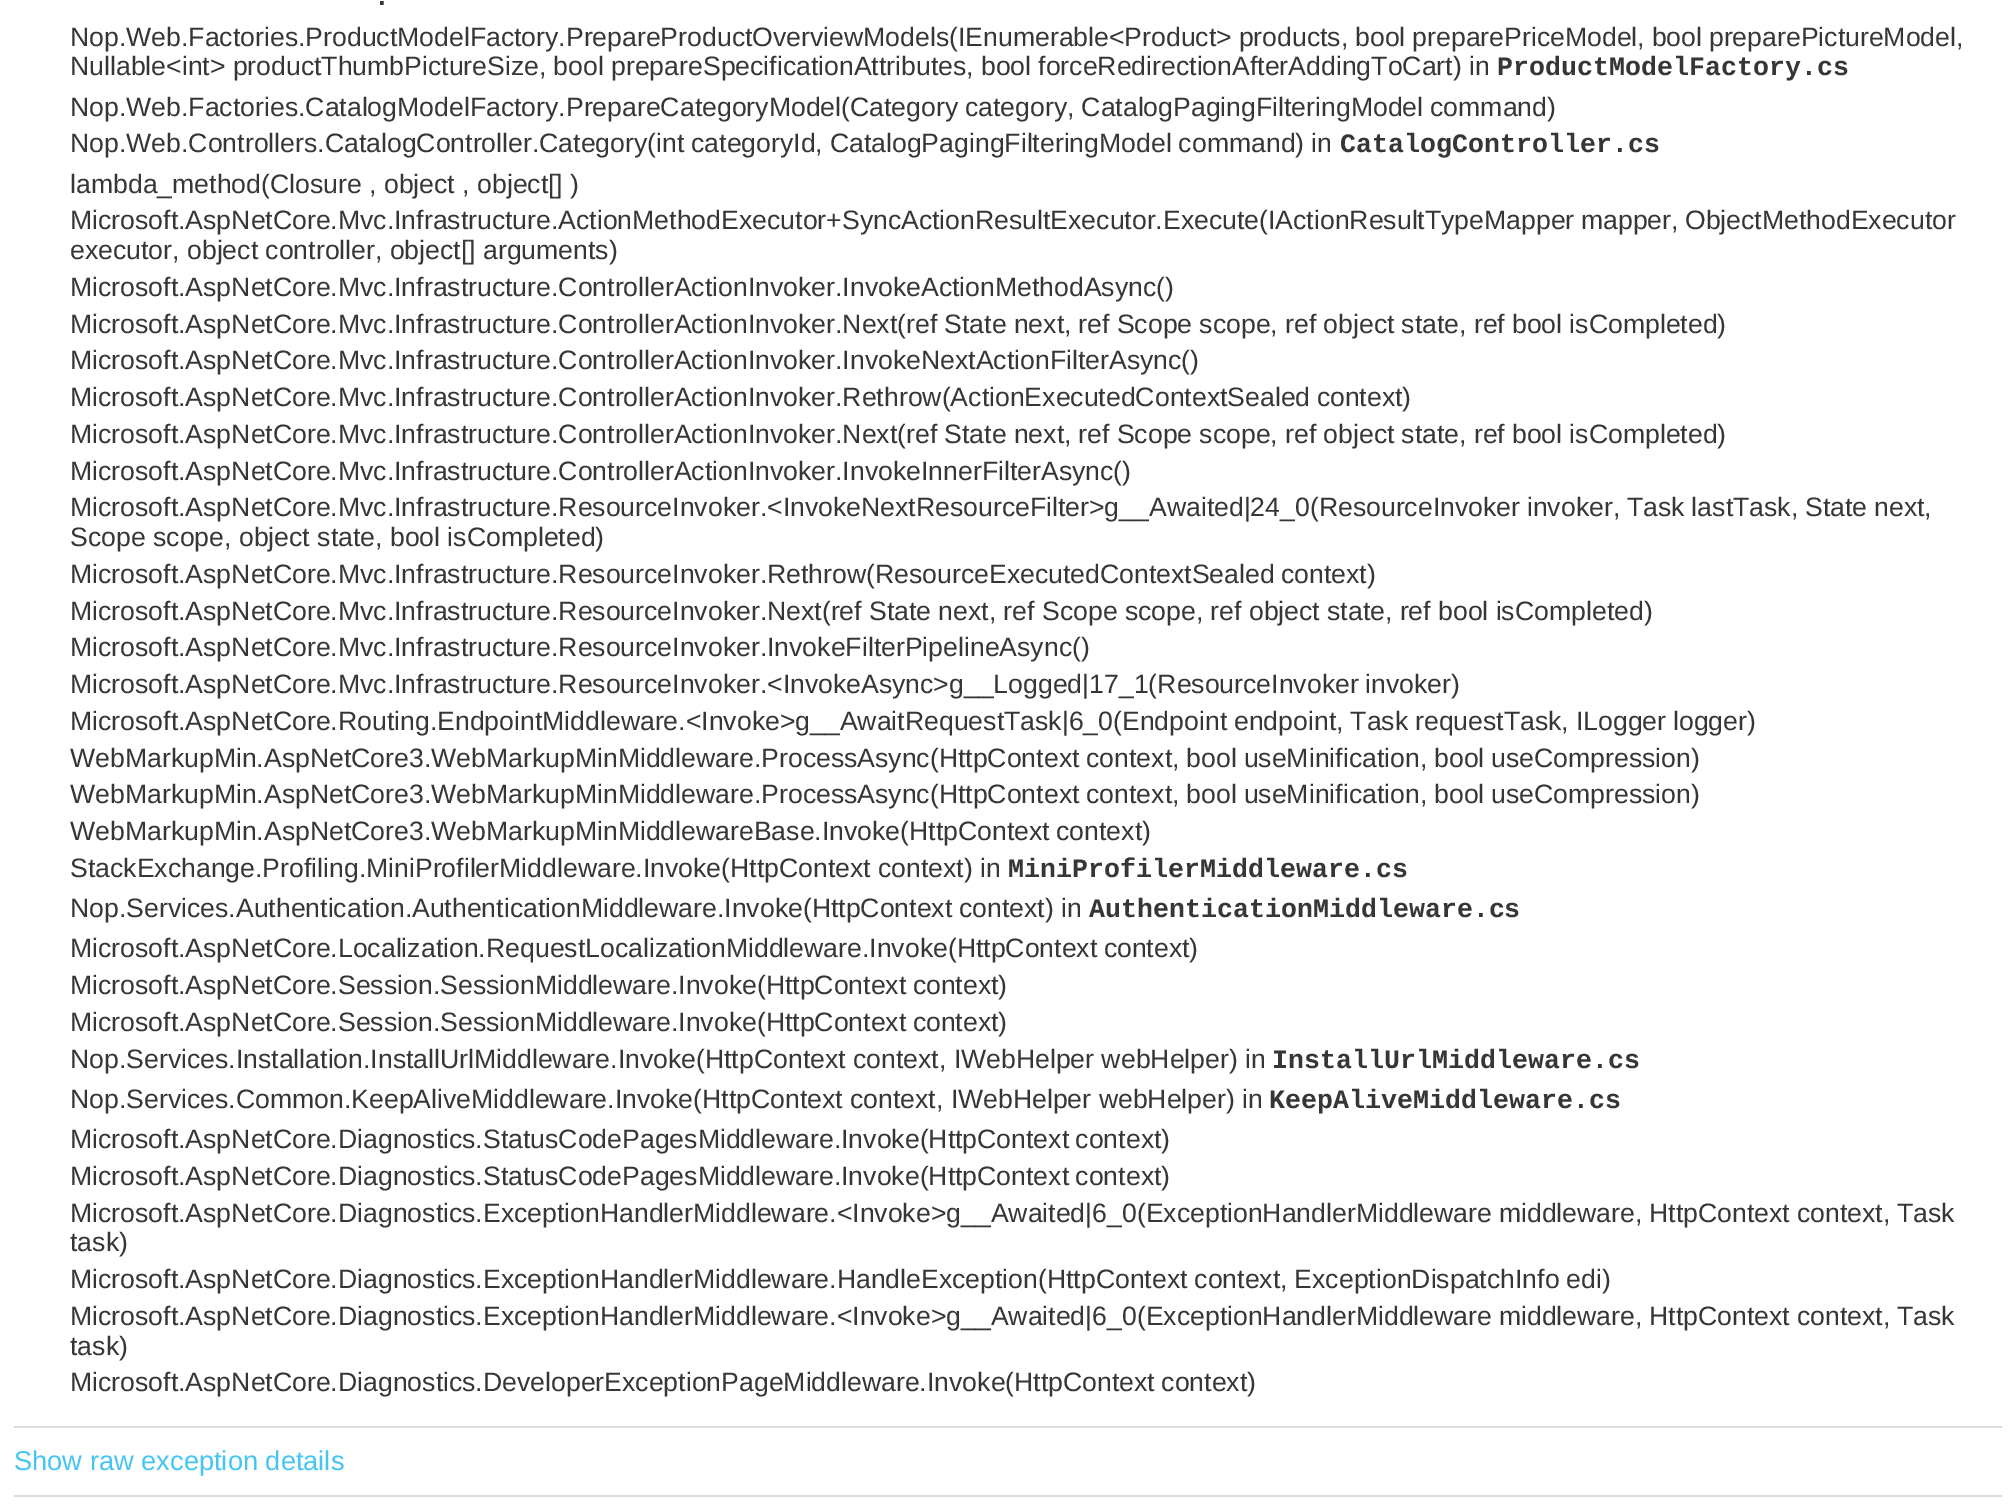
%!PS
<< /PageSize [2016 1509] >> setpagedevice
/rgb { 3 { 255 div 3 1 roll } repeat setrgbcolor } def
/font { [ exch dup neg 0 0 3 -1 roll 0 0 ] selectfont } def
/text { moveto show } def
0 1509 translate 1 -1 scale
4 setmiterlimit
255 255 255 rgb
0 0 2016 1509 rectfill
221 221 221 rgb
14 1426 1988 2 rectfill
14 1495 1988 2 rectfill
/LiberationMono-Bold 26.63 font
54 54 54 rgb
(.) 374 5 text
/LiberationSans-Regular 26.63 font
70 46 moveto -0.5 0 32 (Nop.Web.Factories.ProductModelFactory.PrepareProductOverviewModels\(IEnumerable<Product> products, bool preparePriceModel, bool preparePictureModel,) widthshow
70 75 moveto -0.25 0 32 (Nullable<int> productThumbPictureSize, bool prepareSpecificationAttributes, bool forceRedirectionAfterAddingToCart\) in) widthshow
/LiberationMono-Bold 26.63 font
(ProductModelFactory.cs) 1497 75 text
/LiberationSans-Regular 26.63 font
70 116 moveto -0.5 0 32 (Nop.Web.Factories.CatalogModelFactory.PrepareCategoryModel\(Category category, CatalogPagingFilteringModel command\)) widthshow
70 152 moveto -0.5 0 32 (Nop.Web.Controllers.CatalogController.Category\(int categoryId, CatalogPagingFilteringModel command\) in) widthshow
/LiberationMono-Bold 26.63 font
(CatalogController.cs) 1340 152 text
/LiberationSans-Regular 26.63 font
(lambda_method\(Closure , object , object[] \)) 70 193 text
70 229 moveto -1 0 32 (Microsoft.AspNetCore.Mvc.Infrastructure.ActionMethodExecutor+SyncActionResultExecutor.Execute\(IActionResultTypeMapper mapper, ObjectMethodExecutor) widthshow
(executor, object controller, object[] arguments\)) 70 259 text
(Microsoft.AspNetCore.Mvc.Infrastructure.ControllerActionInvoker.InvokeActionMethodAsync\(\)) 70 296 text
70 333 moveto -0.25 0 32 (Microsoft.AspNetCore.Mvc.Infrastructure.ControllerActionInvoker.Next\(ref State next, ref Scope scope, ref object state, ref bool isCompleted\)) widthshow
(Microsoft.AspNetCore.Mvc.Infrastructure.ControllerActionInvoker.InvokeNextActionFilterAsync\(\)) 70 369 text
70 406 moveto -1 0 32 (Microsoft.AspNetCore.Mvc.Infrastructure.ControllerActionInvoker.Rethrow\(ActionExecutedContextSealed context\)) widthshow
70 443 moveto -0.25 0 32 (Microsoft.AspNetCore.Mvc.Infrastructure.ControllerActionInvoker.Next\(ref State next, ref Scope scope, ref object state, ref bool isCompleted\)) widthshow
(Microsoft.AspNetCore.Mvc.Infrastructure.ControllerActionInvoker.InvokeInnerFilterAsync\(\)) 70 480 text
70 516 moveto -0.5 0 32 (Microsoft.AspNetCore.Mvc.Infrastructure.ResourceInvoker.<InvokeNextResourceFilter>g__Awaited|24_0\(ResourceInvoker invoker, Task lastTask, State next,) widthshow
(Scope scope, object state, bool isCompleted\)) 70 546 text
70 583 moveto -1 0 32 (Microsoft.AspNetCore.Mvc.Infrastructure.ResourceInvoker.Rethrow\(ResourceExecutedContextSealed context\)) widthshow
70 620 moveto -0.1 0 32 (Microsoft.AspNetCore.Mvc.Infrastructure.ResourceInvoker.Next\(ref State next, ref Scope scope, ref object state, ref bool isCompleted\)) widthshow
(Microsoft.AspNetCore.Mvc.Infrastructure.ResourceInvoker.InvokeFilterPipelineAsync\(\)) 70 656 text
70 693 moveto -1 0 32 (Microsoft.AspNetCore.Mvc.Infrastructure.ResourceInvoker.<InvokeAsync>g__Logged|17_1\(ResourceInvoker invoker\)) widthshow
70 730 moveto -0.5 0 32 (Microsoft.AspNetCore.Routing.EndpointMiddleware.<Invoke>g__AwaitRequestTask|6_0\(Endpoint endpoint, Task requestTask, ILogger logger\)) widthshow
70 767 moveto -0.5 0 32 (WebMarkupMin.AspNetCore3.WebMarkupMinMiddleware.ProcessAsync\(HttpContext context, bool useMinification, bool useCompression\)) widthshow
70 803 moveto -0.5 0 32 (WebMarkupMin.AspNetCore3.WebMarkupMinMiddleware.ProcessAsync\(HttpContext context, bool useMinification, bool useCompression\)) widthshow
70 840 moveto -1 0 32 (WebMarkupMin.AspNetCore3.WebMarkupMinMiddlewareBase.Invoke\(HttpContext context\)) widthshow
(StackExchange.Profiling.MiniProfilerMiddleware.Invoke\(HttpContext context\) in) 70 877 text
/LiberationMono-Bold 26.63 font
(MiniProfilerMiddleware.cs) 1008 877 text
/LiberationSans-Regular 26.63 font
70 917 moveto -0.5 0 32 (Nop.Services.Authentication.AuthenticationMiddleware.Invoke\(HttpContext context\) in) widthshow
/LiberationMono-Bold 26.63 font
(AuthenticationMiddleware.cs) 1089 917 text
/LiberationSans-Regular 26.63 font
70 957 moveto -1 0 32 (Microsoft.AspNetCore.Localization.RequestLocalizationMiddleware.Invoke\(HttpContext context\)) widthshow
70 994 moveto -1 0 32 (Microsoft.AspNetCore.Session.SessionMiddleware.Invoke\(HttpContext context\)) widthshow
70 1031 moveto -1 0 32 (Microsoft.AspNetCore.Session.SessionMiddleware.Invoke\(HttpContext context\)) widthshow
(Nop.Services.Installation.InstallUrlMiddleware.Invoke\(HttpContext context, IWebHelper webHelper\) in) 70 1068 text
/LiberationMono-Bold 26.63 font
(InstallUrlMiddleware.cs) 1272 1068 text
/LiberationSans-Regular 26.63 font
(Nop.Services.Common.KeepAliveMiddleware.Invoke\(HttpContext context, IWebHelper webHelper\) in) 70 1108 text
/LiberationMono-Bold 26.63 font
(KeepAliveMiddleware.cs) 1269 1108 text
/LiberationSans-Regular 26.63 font
70 1148 moveto -1 0 32 (Microsoft.AspNetCore.Diagnostics.StatusCodePagesMiddleware.Invoke\(HttpContext context\)) widthshow
70 1185 moveto -1 0 32 (Microsoft.AspNetCore.Diagnostics.StatusCodePagesMiddleware.Invoke\(HttpContext context\)) widthshow
70 1222 moveto -0.5 0 32 (Microsoft.AspNetCore.Diagnostics.ExceptionHandlerMiddleware.<Invoke>g__Awaited|6_0\(ExceptionHandlerMiddleware middleware, HttpContext context, Task) widthshow
(task\)) 70 1251 text
70 1288 moveto -0.5 0 32 (Microsoft.AspNetCore.Diagnostics.ExceptionHandlerMiddleware.HandleException\(HttpContext context, ExceptionDispatchInfo edi\)) widthshow
70 1325 moveto -0.5 0 32 (Microsoft.AspNetCore.Diagnostics.ExceptionHandlerMiddleware.<Invoke>g__Awaited|6_0\(ExceptionHandlerMiddleware middleware, HttpContext context, Task) widthshow
(task\)) 70 1355 text
70 1391 moveto -1 0 32 (Microsoft.AspNetCore.Diagnostics.DeveloperExceptionPageMiddleware.Invoke\(HttpContext context\)) widthshow
/LiberationSans-Regular 27.25 font
68 197 242 rgb
(Show raw exception details) 14 1470 text
showpage
